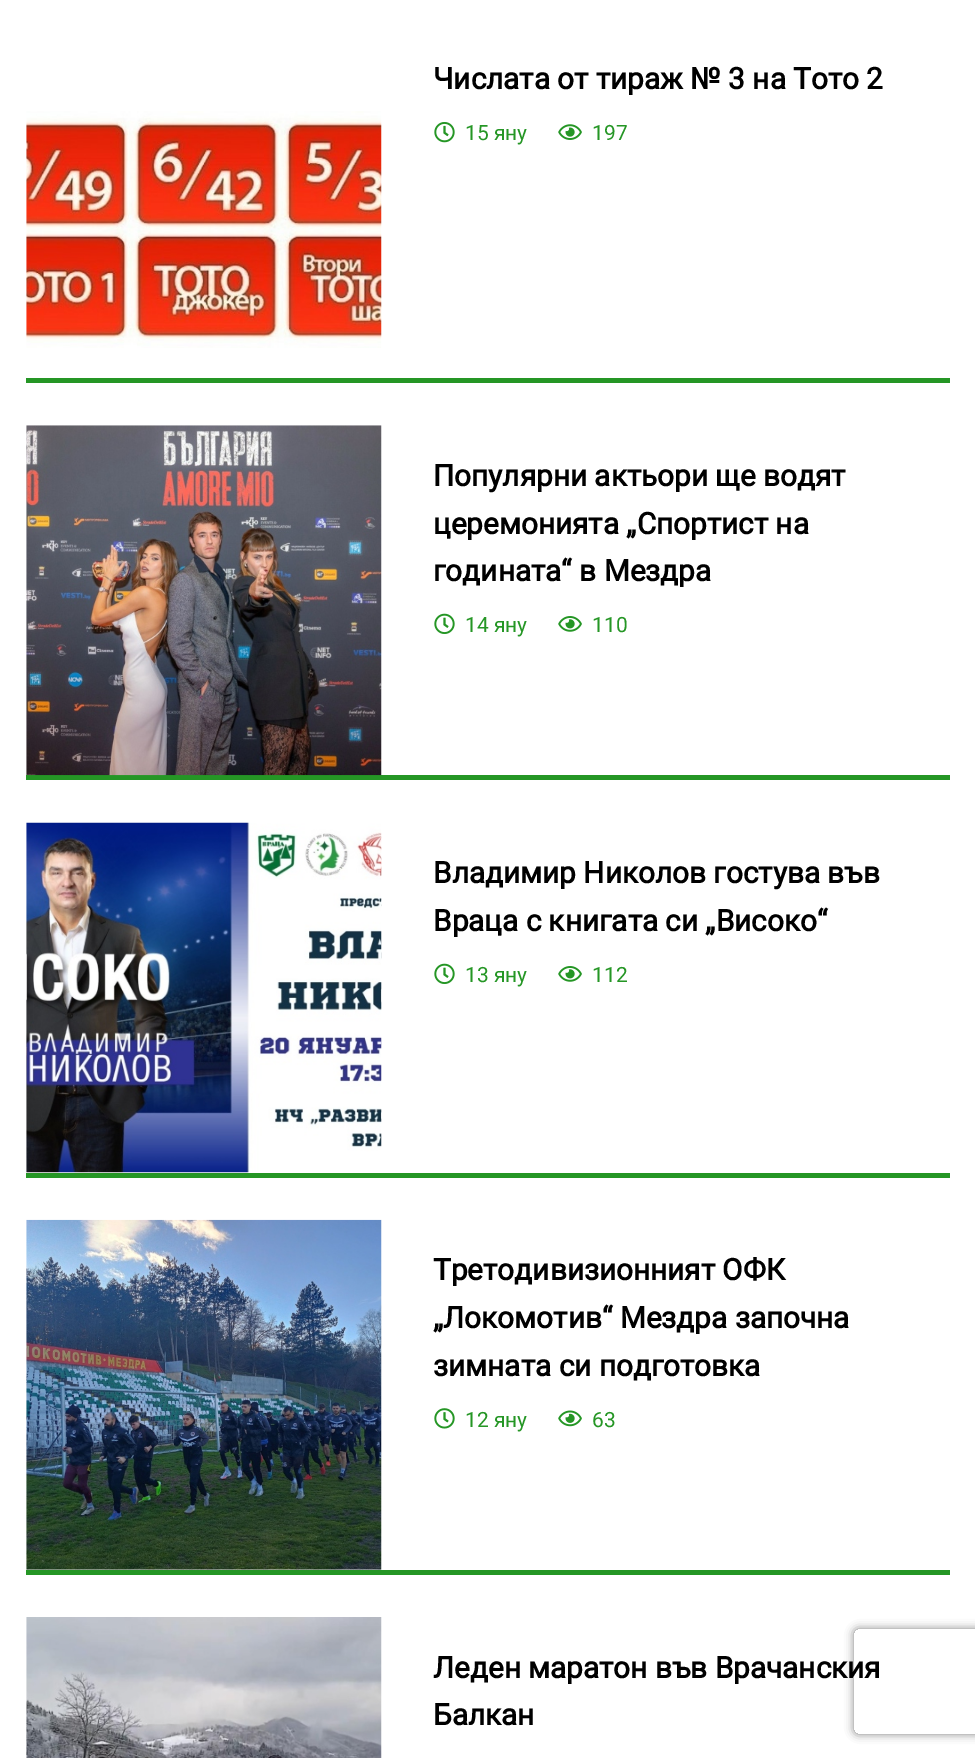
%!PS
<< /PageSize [975 1758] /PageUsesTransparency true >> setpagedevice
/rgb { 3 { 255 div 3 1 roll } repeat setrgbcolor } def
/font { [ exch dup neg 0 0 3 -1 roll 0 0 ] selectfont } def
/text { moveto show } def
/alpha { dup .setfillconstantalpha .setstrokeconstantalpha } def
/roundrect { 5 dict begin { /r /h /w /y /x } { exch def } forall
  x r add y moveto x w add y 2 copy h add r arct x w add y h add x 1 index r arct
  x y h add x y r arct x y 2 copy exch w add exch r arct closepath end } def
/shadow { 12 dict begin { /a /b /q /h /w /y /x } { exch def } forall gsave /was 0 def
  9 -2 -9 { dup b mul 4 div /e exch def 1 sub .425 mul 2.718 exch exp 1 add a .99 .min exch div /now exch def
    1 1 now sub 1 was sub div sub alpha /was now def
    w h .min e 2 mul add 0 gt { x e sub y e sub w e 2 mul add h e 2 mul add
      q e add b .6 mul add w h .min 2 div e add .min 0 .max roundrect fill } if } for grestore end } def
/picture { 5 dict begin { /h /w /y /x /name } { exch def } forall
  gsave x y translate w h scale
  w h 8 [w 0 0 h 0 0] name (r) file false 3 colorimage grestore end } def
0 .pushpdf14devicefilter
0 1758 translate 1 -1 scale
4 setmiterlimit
255 255 255 rgb
0 0 975 1758 rectfill
37 150 37 rgb
26 378 924 5 rectfill
(img_01.rgb) 26 111 356 237 picture
(img_02.rgb) 434 122 21 21 picture
(img_03.rgb) 558 124 24 16 picture
26 775 924 5 rectfill
(img_04.rgb) 26 425 356 351 picture
(img_05.rgb) 434 613 21 21 picture
(img_06.rgb) 558 616 24 16 picture
26 1173 924 5 rectfill
(img_07.rgb) 26 822 356 351 picture
(img_05.rgb) 434 963 21 21 picture
(img_06.rgb) 558 966 24 16 picture
26 1570 924 5 rectfill
(img_08.rgb) 26 1219 356 351 picture
(img_09.rgb) 434 1408 21 21 picture
(img_10.rgb) 558 1410 24 17 picture
(img_11.rgb) 26 1617 356 141 picture
gsave
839 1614 moveto 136 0 rlineto 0 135 rlineto -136 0 rlineto closepath 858 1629 moveto 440 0 rlineto 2 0 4 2 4 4 rcurveto 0 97 rlineto 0 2 -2 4 -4 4 rcurveto -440 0 rlineto -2 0 -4 -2 -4 -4 rcurveto 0 -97 rlineto 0 -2 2 -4 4 -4 rcurveto closepath eoclip newpath
128 128 128 rgb
854 1629 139 105 4 4.5 1 shadow
grestore
/Roboto-Bold 29.75 font
0 0 0 rgb
(Числата от тираж № 3 на Тото 2) 433 89 text
/Roboto-Regular 21 font
37 150 37 rgb
(15 яну) 465 140 text
(197) 592 140 text
/Roboto-Bold 29.75 font
0 0 0 rgb
(Популярни актьори ще водят) 433 486 text
(церемонията „Спортист на) 433 534 text
(годината“ в Мездра) 433 581 text
/Roboto-Regular 21 font
37 150 37 rgb
(14 яну) 465 632 text
(110) 592 632 text
/Roboto-Bold 29.75 font
0 0 0 rgb
(Владимир Николов гостува във) 433 883 text
(Враца с книгата си „Високо“) 433 931 text
/Roboto-Regular 21 font
37 150 37 rgb
(13 яну) 465 982 text
(112) 592 982 text
/Roboto-Bold 29.75 font
0 0 0 rgb
(Третодивизионният ОФК) 433 1280 text
(„Локомотив“ Мездра започна) 433 1328 text
(зимната си подготовка) 433 1376 text
/Roboto-Regular 21 font
37 150 37 rgb
(12 яну) 465 1427 text
(63) 592 1427 text
/Roboto-Bold 29.75 font
0 0 0 rgb
(Леден маратон във Врачанския) 433 1678 text
(Балкан) 433 1725 text
.poppdf14devicefilter showpage
